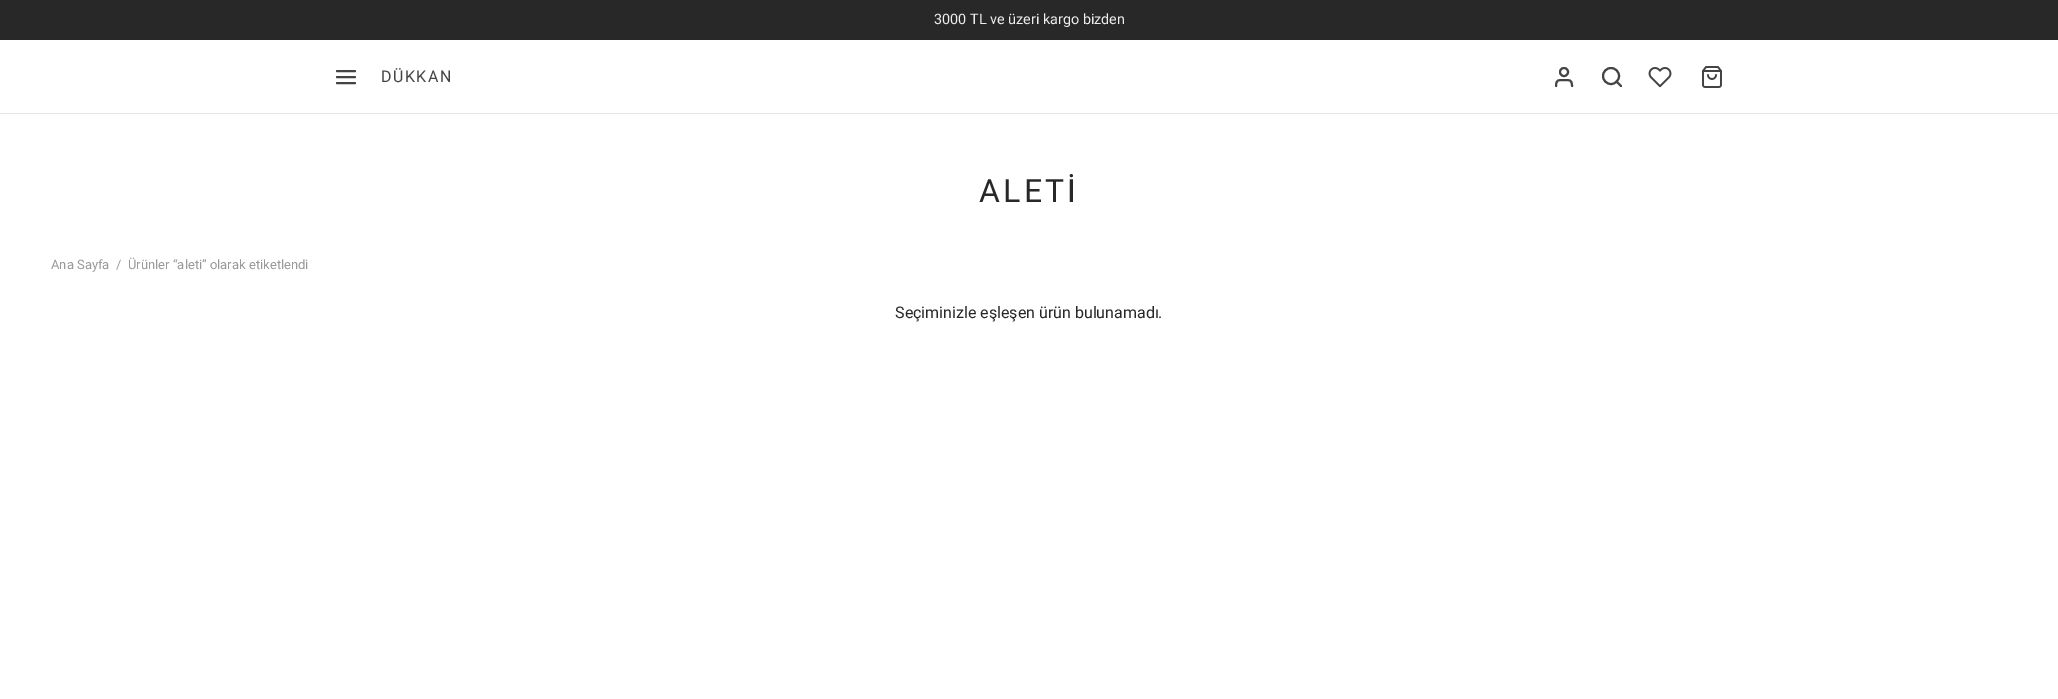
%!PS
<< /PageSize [2058 699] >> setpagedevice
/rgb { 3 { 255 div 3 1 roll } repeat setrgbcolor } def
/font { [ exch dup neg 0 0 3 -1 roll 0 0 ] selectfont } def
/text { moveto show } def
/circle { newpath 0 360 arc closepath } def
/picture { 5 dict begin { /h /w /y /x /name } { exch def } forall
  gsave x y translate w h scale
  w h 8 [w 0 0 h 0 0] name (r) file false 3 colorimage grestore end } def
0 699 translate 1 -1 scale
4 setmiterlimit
255 255 255 rgb
0 0 2058 699 rectfill
40 40 40 rgb
0 0 2058 40 rectfill
68 68 68 rgb
2 setlinewidth
1 setlinecap
1 setlinejoin
337 77 moveto 18 0 rlineto 337 71 moveto 18 0 rlineto 337 83 moveto 18 0 rlineto stroke
1572 86 moveto 0 -6.5 -2.5 -6 -8 -6 rcurveto -5.5 0 -8 -0.5 -8 6 rcurveto stroke
0 setlinecap
0 setlinejoin
1564 72 4 circle stroke
1611 76 8 circle stroke
1 setlinecap
1 setlinejoin
1621 86 moveto -4.5 -4.5 rlineto stroke
(img_01.rgb) 1648 67 24 21 picture
(img_02.rgb) 1702 66 20 22 picture
230 230 230 rgb
0 113 2058 1 rectfill
/Roboto-Regular 14.4 font
238 238 238 rgb
(3000 TL ve üzeri kargo bizden) 934 24 text
/Roboto-Regular 16 font
68 68 68 rgb
381 82 moveto 1.5 0 (DÜKKAN) ashow
/Roboto-Regular 32 font
40 40 40 rgb
979 202 moveto 3.25 0 (ALETİ) ashow
/Roboto-Regular 13 font
153 153 153 rgb
(Ana Sayfa) 51 269 text
(/) 116 269 text
(Ürünler “aleti” olarak etiketlendi) 128 269 text
/Roboto-Regular 16 font
40 40 40 rgb
(Seçiminizle eşleşen ürün bulunamadı.) 895 318 text
showpage
